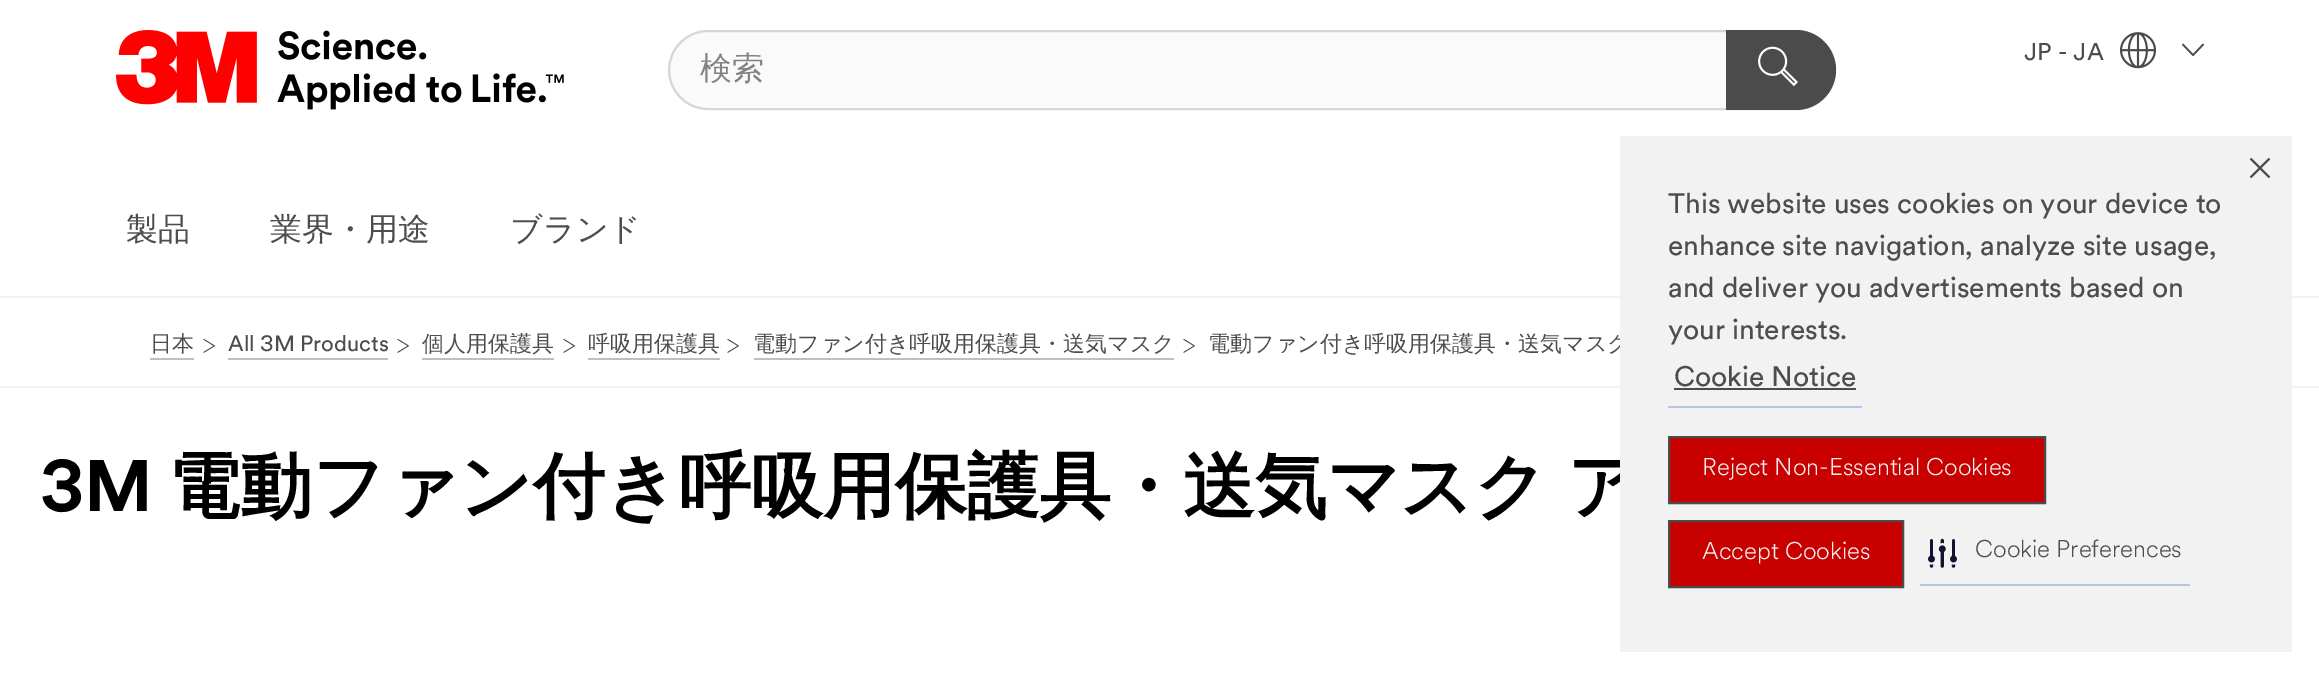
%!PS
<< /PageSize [2319 679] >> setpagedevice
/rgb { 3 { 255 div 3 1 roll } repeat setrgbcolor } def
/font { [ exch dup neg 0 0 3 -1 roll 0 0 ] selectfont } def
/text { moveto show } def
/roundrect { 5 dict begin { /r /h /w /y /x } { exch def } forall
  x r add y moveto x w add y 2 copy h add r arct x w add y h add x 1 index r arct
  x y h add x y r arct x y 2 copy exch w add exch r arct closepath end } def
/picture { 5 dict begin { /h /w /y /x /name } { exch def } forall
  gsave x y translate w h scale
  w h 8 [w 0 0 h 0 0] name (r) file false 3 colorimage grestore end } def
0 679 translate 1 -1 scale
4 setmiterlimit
255 255 255 rgb
0 0 2319 679 rectfill
242 242 242 rgb
0 296 2319 2 rectfill
(img_01.rgb) 2120 32 36 37 picture
(img_02.rgb) 2182 43 22 13 picture
(img_03.rgb) 116 30 448 80 picture
250 250 250 rgb
669 31 1166 78 39 roundrect gsave fill grestore
214 214 214 rgb
2 setlinewidth
stroke
75 75 75 rgb
1726 30 moveto 70 0 rlineto 22 0 40 18 40 40 rcurveto 0 22 -18 40 -40 40 rcurveto -70 0 rlineto closepath fill
(img_04.rgb) 1758 46 40 41 picture
242 242 242 rgb
0 386 2319 2 rectfill
191 191 191 rgb
150 358 44 2 rectfill
(img_05.rgb) 203 339 12 14 picture
228 358 160 2 rectfill
(img_05.rgb) 397 339 12 14 picture
422 358 132 2 rectfill
(img_05.rgb) 563 339 12 14 picture
588 358 132 2 rectfill
(img_05.rgb) 727 339 12 14 picture
754 358 420 2 rectfill
(img_05.rgb) 1183 339 12 14 picture
/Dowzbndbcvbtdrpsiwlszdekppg-Regular 24 font
77 77 77 rgb
(JP - JA) 2024 60 text
/WenQuanYiZenHei-Medium 32 font
(製品) 126 240 text
(業界・用途) 270 240 text
(ブランド) 510 240 text
131 131 131 rgb
(検索) 700 79 text
/WenQuanYiZenHei-Medium 22 font
77 77 77 rgb
(日本) 150 351 text
/Dowzbndbcvbtdrpsiwlszdekppg-Regular 22 font
(All 3M Products) 228 351 text
/WenQuanYiZenHei-Medium 22 font
(個人用保護具) 422 351 text
(呼吸用保護具) 588 351 text
(電動ファン付き呼吸用保護具・送気マスク) 753 351 text
1208 351 moveto -1 0 32 (電動ファン付き呼吸用保護具・送気マスク) widthshow
/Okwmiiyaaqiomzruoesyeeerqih-Bold 72 font
0 0 0 rgb
(3M) 40 511 text
/WenQuanYiZenHei-Bold 72 font
168 511 moveto -2 0 32 (電動ファン付き呼吸用保護具・送気マスク ア) widthshow
242 242 242 rgb
1620 136 672 516 rectfill
/Dowzbndbcvbtdrpsiwlszdekppg-Regular 28 font
77 77 77 rgb
(This website uses cookies on your device to) 1668 213 text
(enhance site navigation, analyze site usage,) 1668 255 text
(and deliver you advertisements based on) 1668 297 text
(your interests.) 1668 339 text
182 194 233 rgb
1668 406 194 2 rectfill
77 77 77 rgb
(Cookie Notice) 1674 386 text
75 75 75 rgb
1674 388 182 2 rectfill
(img_06.rgb) 2250 158 20 20 picture
200 0 0 rgb
1669 437 moveto 376 0 rlineto 0 66 rlineto -376 0 rlineto closepath gsave fill grestore
75 75 75 rgb
stroke
/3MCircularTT-Light 24 font
242 242 242 rgb
(Reject Non-Essential Cookies) 1702 475 text
200 0 0 rgb
1669 521 moveto 234 0 rlineto 0 66 rlineto -234 0 rlineto closepath gsave fill grestore
75 75 75 rgb
stroke
242 242 242 rgb
(Accept Cookies) 1702 559 text
182 194 233 rgb
1920 584 270 2 rectfill
(img_07.rgb) 1928 538 29 30 picture
77 77 77 rgb
(Cookie Preferences) 1975 557 text
showpage
